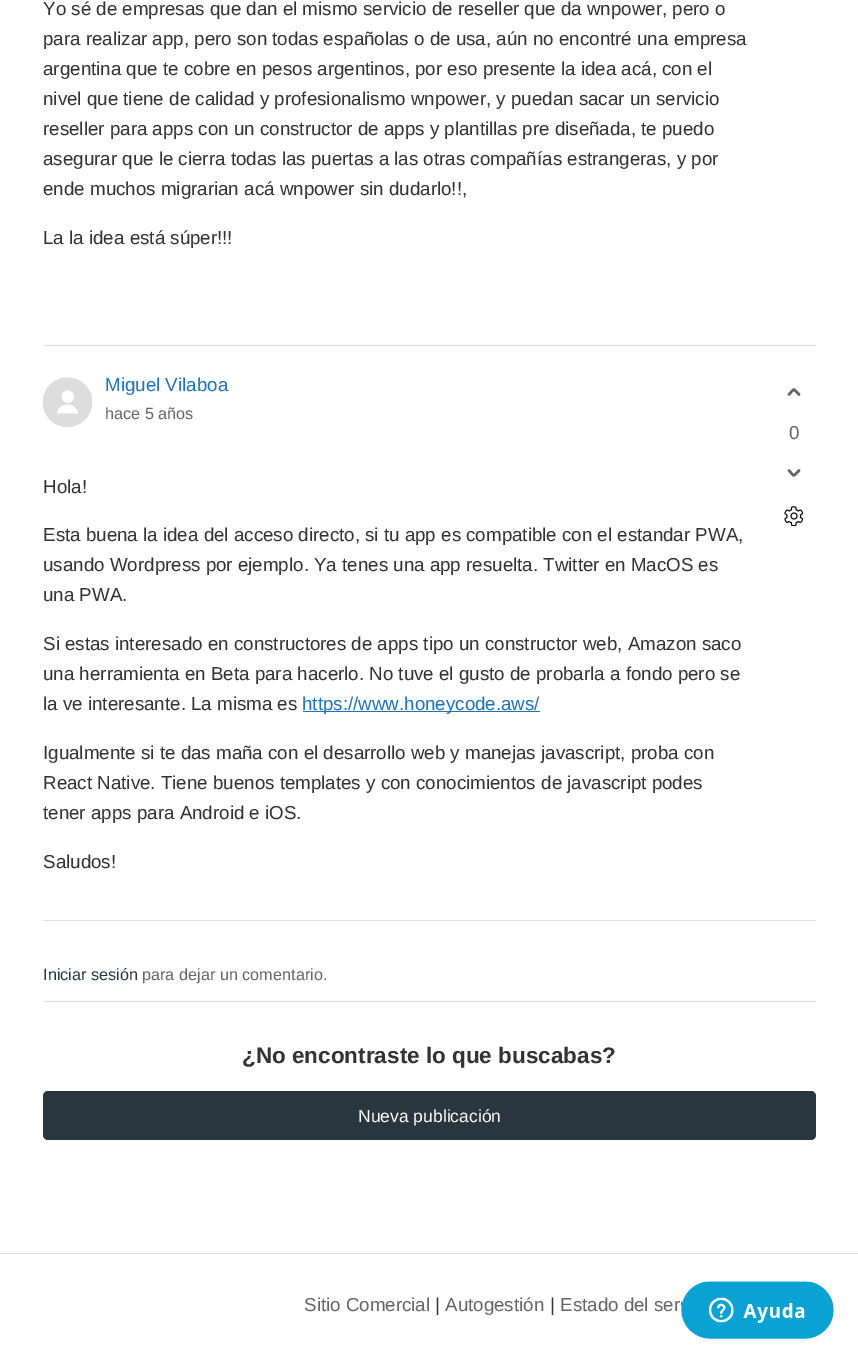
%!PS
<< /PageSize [858 1356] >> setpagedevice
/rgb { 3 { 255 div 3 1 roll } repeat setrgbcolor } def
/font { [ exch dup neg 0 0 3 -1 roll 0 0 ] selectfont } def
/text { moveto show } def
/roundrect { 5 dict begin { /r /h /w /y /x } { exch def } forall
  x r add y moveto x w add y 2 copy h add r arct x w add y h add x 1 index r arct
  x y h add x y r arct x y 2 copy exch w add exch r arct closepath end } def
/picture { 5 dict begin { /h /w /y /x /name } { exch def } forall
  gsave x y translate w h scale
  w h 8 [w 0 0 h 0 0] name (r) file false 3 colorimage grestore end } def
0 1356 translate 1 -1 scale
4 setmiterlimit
255 255 255 rgb
0 0 858 1356 rectfill
221 221 221 rgb
43 345 773 1 rectfill
43 920 773 1 rectfill
(img_01.rgb) 42 377 51 50 picture
31 115 183 rgb
303 711 237 1 rectfill
102 102 102 rgb
2.5 setlinewidth
1 setlinecap
789 394.5 moveto 6 -6.5 3.5 -6.5 10 0 rcurveto stroke
789 470.5 moveto 6 6.5 3.5 6.5 10 0 rcurveto stroke
(img_02.rgb) 784 506 20 20 picture
221 221 221 rgb
43 1001 773 1 rectfill
42 54 63 rgb
43 1091 773 49 5 roundrect fill
221 221 221 rgb
0 1253 858 1 rectfill
(img_03.rgb) 681 1281 153 58 picture
/LiberationSans-Regular 18.75 font
51 51 51 rgb
(Yo sé de empresas que dan el mismo servicio de reseller que da wnpower, pero o) 43 15 text
(para realizar app, pero son todas españolas o de usa, aún no encontré una empresa) 43 45 text
(argentina que te cobre en pesos argentinos, por eso presente la idea acá, con el) 43 75 text
(nivel que tiene de calidad y profesionalismo wnpower, y puedan sacar un servicio) 43 105 text
(reseller para apps con un constructor de apps y plantillas pre diseñada, te puedo) 43 135 text
(asegurar que le cierra todas las puertas a las otras compañías estrangeras, y por) 43 165 text
(ende muchos migrarian acá wnpower sin dudarlo!!,) 43 195 text
(La la idea está súper!!!) 43 244 text
31 115 183 rgb
(Miguel Vilaboa) 105 391 text
/LiberationSans-Regular 16.25 font
102 102 102 rgb
(hace 5 años) 105 419 text
/LiberationSans-Regular 18.75 font
51 51 51 rgb
(Hola!) 43 493 text
(Esta buena la idea del acceso directo, si tu app es compatible con el estandar PWA,) 43 541 text
(usando Wordpress por ejemplo. Ya tenes una app resuelta. Twitter en MacOS es) 43 571 text
(una PWA.) 43 601 text
(Si estas interesado en constructores de apps tipo un constructor web, Amazon saco) 43 650 text
(una herramienta en Beta para hacerlo. No tuve el gusto de probarla a fondo pero se) 43 680 text
(la ve interesante. La misma es) 43 710 text
31 115 183 rgb
(https://www.honeycode.aws/) 302 710 text
51 51 51 rgb
(Igualmente si te das maña con el desarrollo web y manejas javascript, proba con) 43 759 text
(React Native. Tiene buenos templates y con conocimientos de javascript podes) 43 789 text
(tener apps para Android e iOS.) 43 819 text
(Saludos!) 43 868 text
102 102 102 rgb
(0) 789 439 text
/LiberationSans-Regular 16.25 font
42 54 63 rgb
(Iniciar sesión) 43 980 text
102 102 102 rgb
(para dejar un comentario.) 142 980 text
/LiberationSans-Bold 22.5 font
51 51 51 rgb
(¿No encontraste lo que buscabas?) 242 1063 text
/LiberationSans-Regular 17.5 font
255 255 255 rgb
(Nueva publicación) 358 1122 text
/LiberationSans-Regular 18.75 font
102 102 102 rgb
(Sitio Comercial) 304 1311 text
51 51 51 rgb
(|) 435 1311 text
102 102 102 rgb
(Autogestión) 445 1311 text
51 51 51 rgb
(|) 550 1311 text
102 102 102 rgb
(Estado del ser) 560 1311 text
showpage
